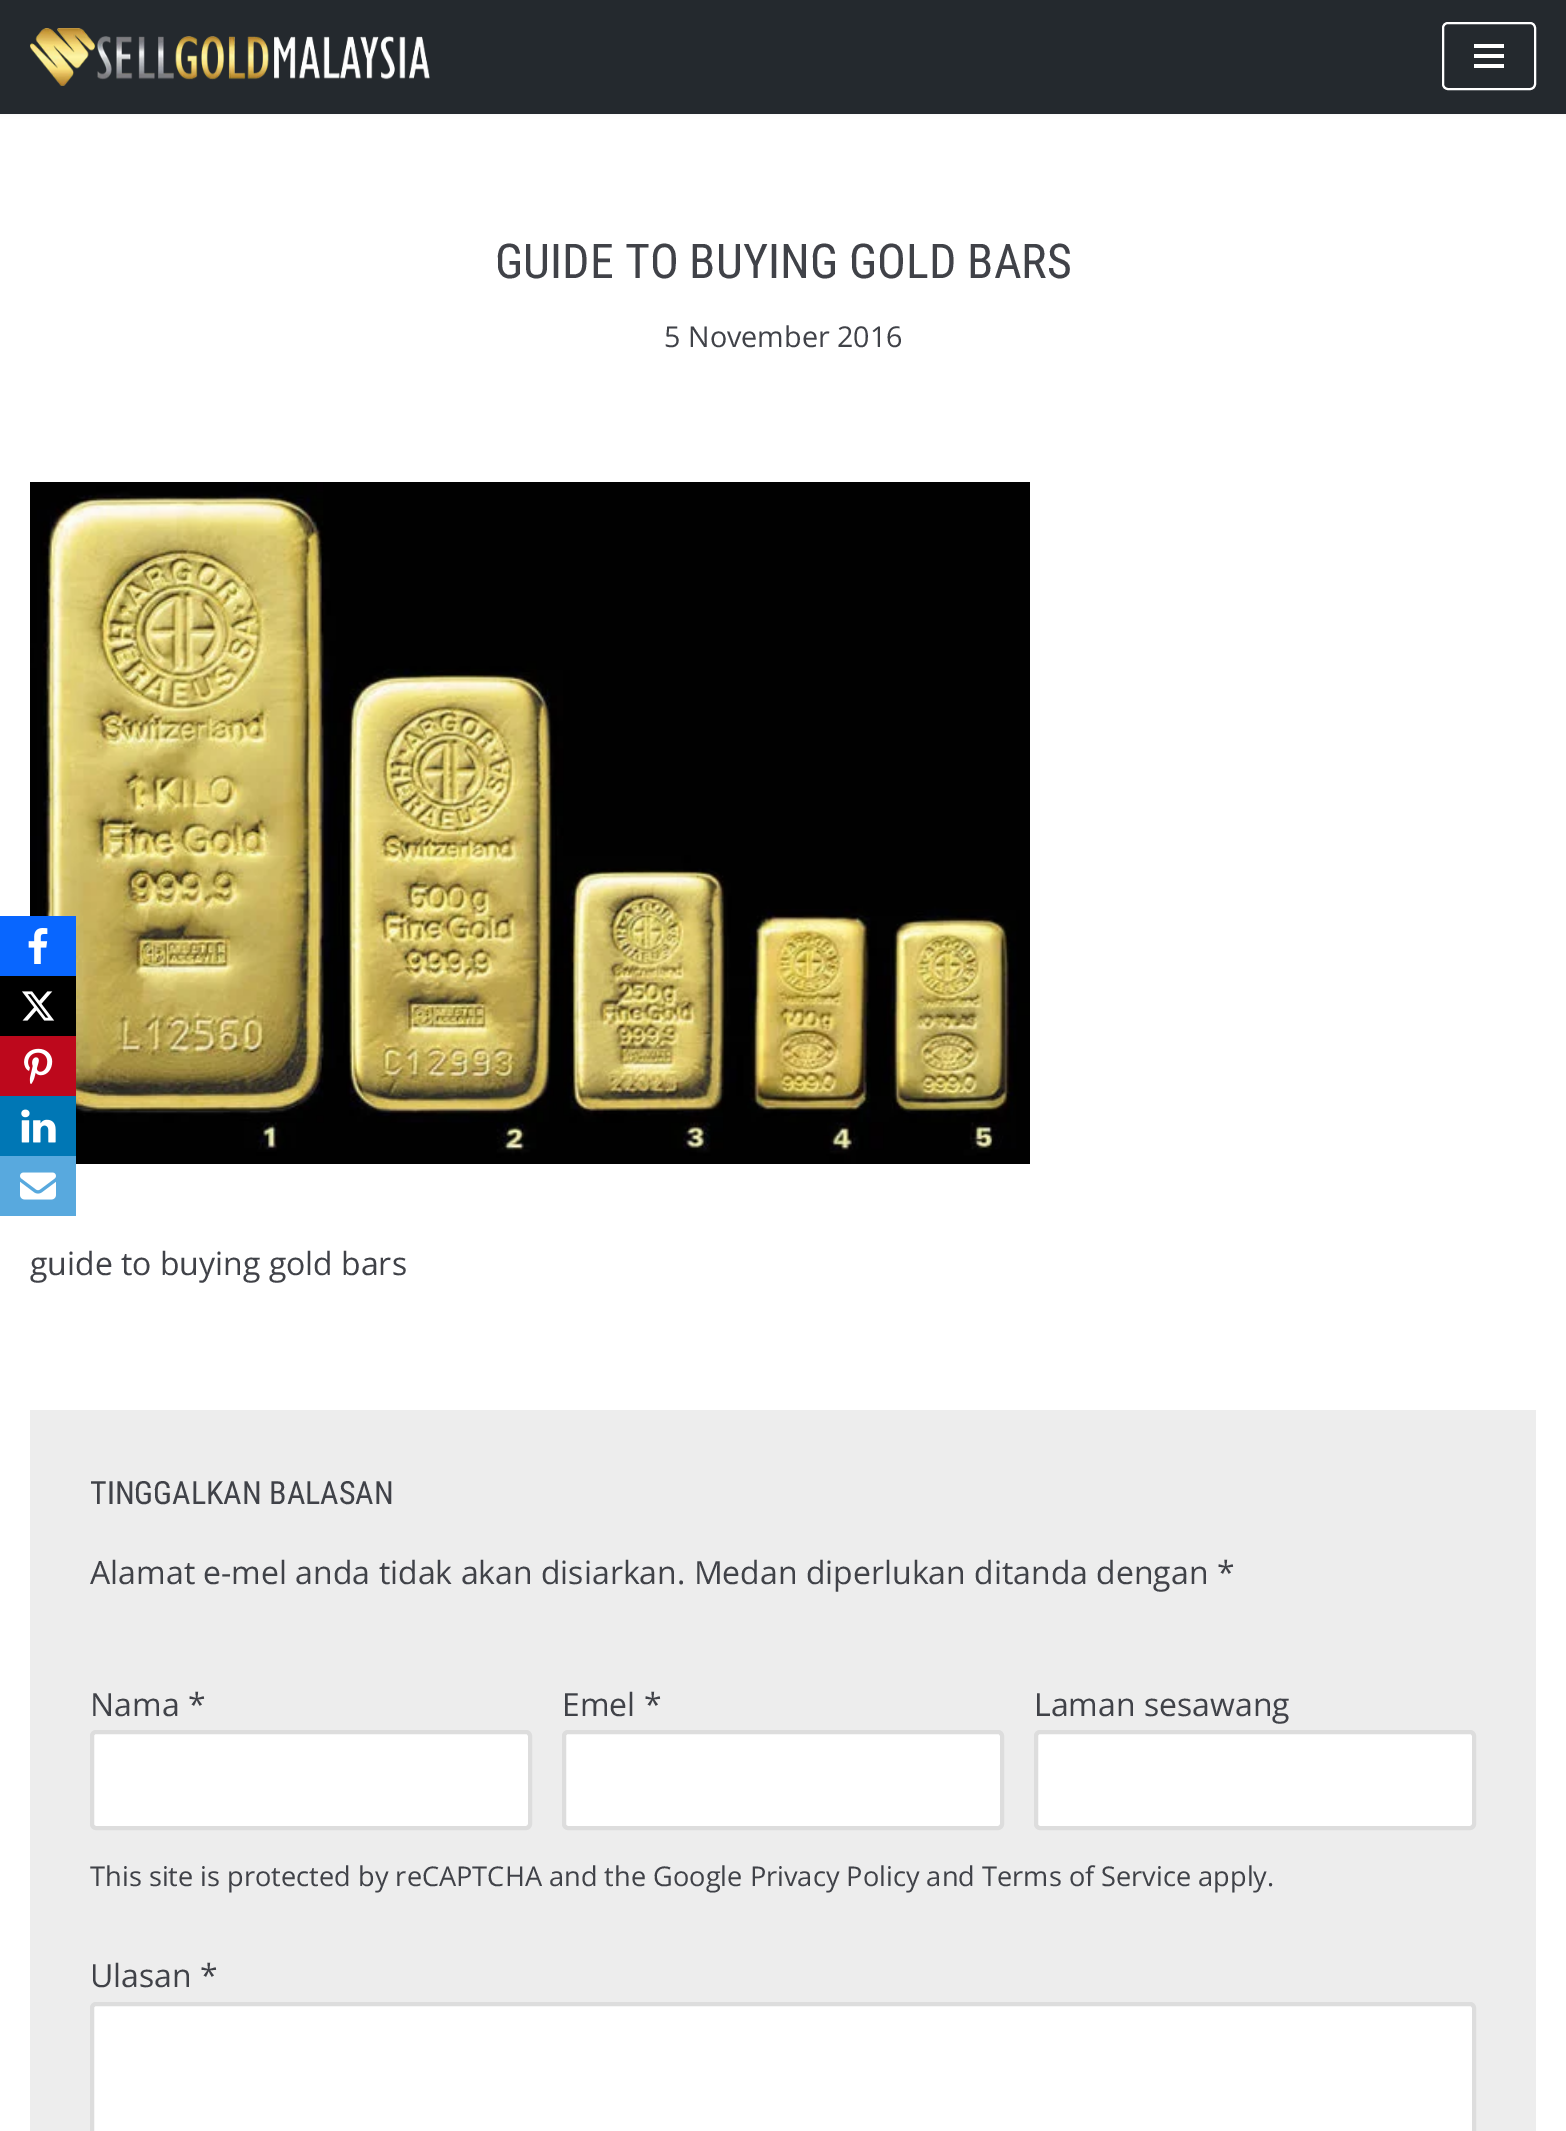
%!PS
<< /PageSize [1566 2131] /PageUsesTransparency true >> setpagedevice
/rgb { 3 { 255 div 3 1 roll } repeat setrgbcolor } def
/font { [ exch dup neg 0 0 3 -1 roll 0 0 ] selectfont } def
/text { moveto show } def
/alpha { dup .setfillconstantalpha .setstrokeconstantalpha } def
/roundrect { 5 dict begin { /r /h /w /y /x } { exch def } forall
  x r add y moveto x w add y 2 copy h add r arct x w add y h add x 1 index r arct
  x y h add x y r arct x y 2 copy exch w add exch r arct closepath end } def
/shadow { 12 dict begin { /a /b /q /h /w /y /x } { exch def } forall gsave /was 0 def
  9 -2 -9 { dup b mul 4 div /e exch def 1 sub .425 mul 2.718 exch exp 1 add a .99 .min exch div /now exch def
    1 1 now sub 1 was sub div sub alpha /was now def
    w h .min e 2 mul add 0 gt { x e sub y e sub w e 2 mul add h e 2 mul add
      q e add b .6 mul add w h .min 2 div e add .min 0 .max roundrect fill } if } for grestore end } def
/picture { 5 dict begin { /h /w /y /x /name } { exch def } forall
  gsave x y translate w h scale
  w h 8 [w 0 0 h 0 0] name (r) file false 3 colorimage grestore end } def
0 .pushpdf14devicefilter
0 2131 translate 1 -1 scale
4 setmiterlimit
255 255 255 rgb
0 0 1566 2131 rectfill
0 0 0 rgb
0 -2 1566 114 0 3 0.1 shadow
36 41 46 rgb
0 0 1566 114 rectfill
(img_01.rgb) 30 28 400 58 picture
255 255 255 rgb
2 setlinewidth
1443 23 92 66 5 roundrect stroke
1474 44 30 4 rectfill
1474 54 30 4 rectfill
1474 64 30 4 rectfill
(img_02.rgb) 30 482 1000 682 picture
237 237 237 rgb
30 1410 1506 721 rectfill
255 255 255 rgb
92 1732 438 96 4 roundrect gsave fill grestore
221 221 221 rgb
4 setlinewidth
stroke
255 255 255 rgb
564 1732 438 96 4 roundrect gsave fill grestore
221 221 221 rgb
stroke
255 255 255 rgb
1036 1732 438 96 4 roundrect gsave fill grestore
221 221 221 rgb
stroke
255 255 255 rgb
92 2004 1382 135 4 roundrect gsave fill grestore
221 221 221 rgb
stroke
8 102 255 rgb
0 916 76 60 rectfill
(img_03.rgb) 28 928 20 36 picture
0 0 0 rgb
0 976 76 60 rectfill
(img_04.rgb) 22 991 33 30 picture
189 8 28 rgb
0 1036 76 60 rectfill
(img_05.rgb) 24 1048 29 36 picture
0 119 181 rgb
0 1096 76 60 rectfill
(img_06.rgb) 21 1109 35 34 picture
88 169 222 rgb
0 1156 76 60 rectfill
(img_07.rgb) 20 1172 36 28 picture
/RobotoCondensed-Regular 48 font
64 66 72 rgb
(GUIDE TO BUYING GOLD BARS) 495 278 text
/OpenSans-Regular 28.75 font
(5 November 2016) 664 347 text
/OpenSans-Regular 32 font
(guide to buying gold bars) 30 1275 text
/RobotoCondensed-Regular 32 font
(TINGGALKAN BALASAN) 90 1504 text
/OpenSans-Regular 32 font
(Alamat e-mel anda tidak akan disiarkan. Medan diperlukan ditanda dengan *) 90 1584 text
(Nama *) 90 1716 text
(Emel *) 562 1716 text
(Laman sesawang) 1034 1716 text
/OpenSans-Regular 27.2 font
(This site is protected by reCAPTCHA and the Google Privacy Policy and Terms of Service apply.) 90 1886 text
/OpenSans-Regular 32 font
(Ulasan *) 90 1987 text
.poppdf14devicefilter showpage
